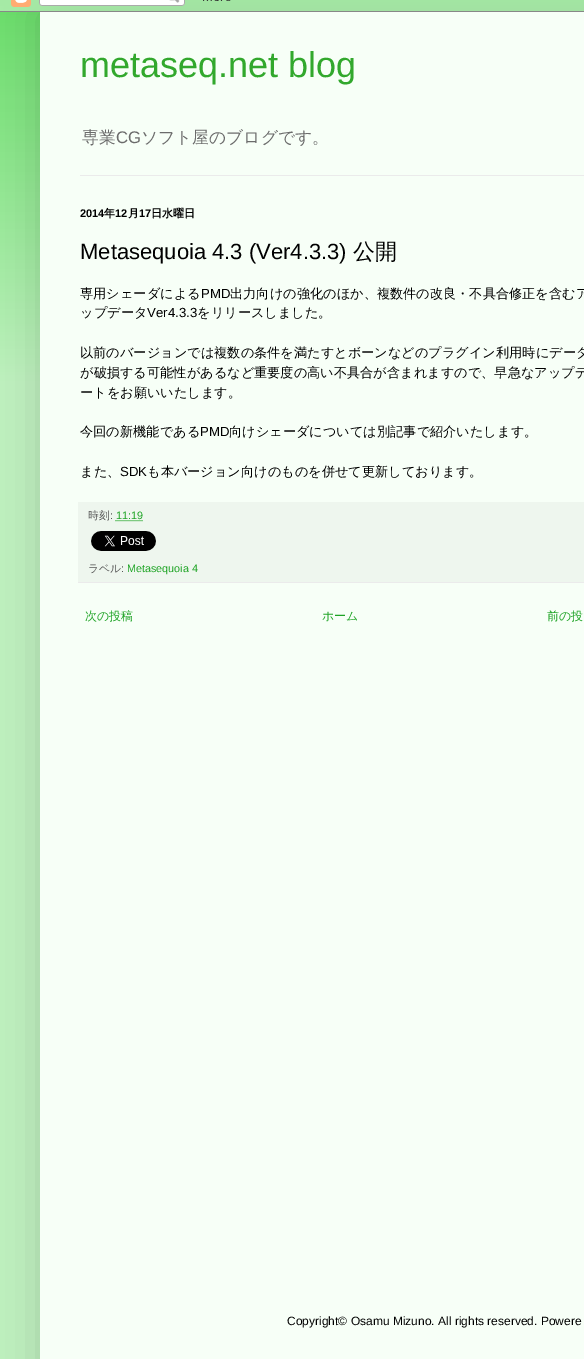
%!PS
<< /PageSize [584 1359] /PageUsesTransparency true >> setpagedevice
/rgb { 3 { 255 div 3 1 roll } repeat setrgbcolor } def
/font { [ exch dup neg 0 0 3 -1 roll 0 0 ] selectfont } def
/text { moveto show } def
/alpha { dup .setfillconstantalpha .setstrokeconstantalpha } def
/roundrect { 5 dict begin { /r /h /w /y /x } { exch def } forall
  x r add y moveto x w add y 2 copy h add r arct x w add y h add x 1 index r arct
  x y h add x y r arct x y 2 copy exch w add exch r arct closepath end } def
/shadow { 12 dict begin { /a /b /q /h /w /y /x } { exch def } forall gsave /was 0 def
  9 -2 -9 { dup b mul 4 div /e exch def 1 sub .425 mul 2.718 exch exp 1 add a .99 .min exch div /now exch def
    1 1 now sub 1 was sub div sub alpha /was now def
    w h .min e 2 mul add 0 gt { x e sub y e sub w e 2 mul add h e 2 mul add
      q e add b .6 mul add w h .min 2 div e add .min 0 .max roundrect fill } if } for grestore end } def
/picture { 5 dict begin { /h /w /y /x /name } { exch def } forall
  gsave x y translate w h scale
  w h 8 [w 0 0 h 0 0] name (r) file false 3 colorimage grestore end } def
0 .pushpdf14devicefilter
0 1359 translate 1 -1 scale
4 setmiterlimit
190 240 190 rgb
0 0 584 1359 rectfill
92 218 92 rgb
0 0 584 382 rectfill
(img_01.rgb) 0 0 584 382 picture
0 0 0 rgb
40 12 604 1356 0 20 0.15 shadow
(img_02.rgb) 0 0 584 12 picture
247 255 247 rgb
40 12 544 1347 rectfill
235 235 235 rgb
80 175 504 1 rectfill
238 246 238 rgb
78 502 506 80 rectfill
235 235 235 rgb
78 582 506 1 rectfill
29 163 36 rgb
[1 1] 0 setdash
115.5 520.5 moveto 27 0 rlineto stroke
(img_03.rgb) 91 531 65 20 picture
/LiberationSans-Regular 36 font
50 168 45 rgb
(metaseq.net blog) 80 77 text
/WenQuanYiZenHei-Medium 16.75 font
107 107 107 rgb
(専業) 82 143 text
/LiberationSans-Regular 16.75 font
(CG) 116 143 text
/WenQuanYiZenHei-Medium 16.75 font
(ソフト屋のブログです。) 141 143 text
/LiberationSans-Bold 11 font
0 0 0 rgb
(2014) 80 217 text
/WenQuanYiZenHei-Bold 11 font
(年) 104 217 text
/LiberationSans-Bold 11 font
(12) 115 217 text
/WenQuanYiZenHei-Bold 11 font
(月) 128 217 text
/LiberationSans-Bold 11 font
(17) 139 217 text
/WenQuanYiZenHei-Bold 11 font
(日水曜日) 151 217 text
/LiberationSans-Regular 22 font
(Metasequoia 4.3 \(Ver4.3.3\)) 80 259 text
/WenQuanYiZenHei-Medium 22 font
(公開) 353 259 text
/WenQuanYiZenHei-Medium 13.2 font
(専用シェーダによる) 80 298 text
/LiberationSans-Regular 13.2 font
(PMD) 201 298 text
/WenQuanYiZenHei-Medium 13.2 font
(出力向けの強化のほか、複数件の改良・不具合修正を含むア) 230 298 text
(ップデータ) 80 317 text
/LiberationSans-Regular 13.2 font
(Ver4.3.3) 147 317 text
/WenQuanYiZenHei-Medium 13.2 font
(をリリースしました。) 197 317 text
(以前のバージョンでは複数の条件を満たすとボーンなどのプラグイン利用時にデータ) 80 357 text
(が破損する可能性があるなど重要度の高い不具合が含まれますので、早急なアップデ) 80 377 text
(ートをお願いいたします。) 80 397 text
(今回の新機能である) 80 436 text
/LiberationSans-Regular 13.2 font
(PMD) 200 436 text
/WenQuanYiZenHei-Medium 13.2 font
(向けシェーダについては別記事で紹介いたします。) 229 436 text
(また、) 80 476 text
/LiberationSans-Regular 13.2 font
(SDK) 120 476 text
/WenQuanYiZenHei-Medium 13.2 font
(も本バージョン向けのものを併せて更新しております。) 147 476 text
/WenQuanYiZenHei-Medium 10.75 font
84 84 84 rgb
(時刻) 88 519 text
/LiberationSans-Regular 10.75 font
(:) 110 519 text
29 163 36 rgb
(11:19) 116 519 text
/WenQuanYiZenHei-Medium 10.75 font
84 84 84 rgb
(ラベル) 88 572 text
/LiberationSans-Regular 10.75 font
(:) 121 572 text
29 163 36 rgb
(Metasequoia 4) 127 572 text
/WenQuanYiZenHei-Medium 12 font
(次の投稿) 85 620 text
(ホーム) 322 620 text
(前の投) 547 620 text
/LiberationSans-Regular 12 font
0 0 0 rgb
(Copyright© Osamu Mizuno. All rights reserved. Powere) 287 1325 text
.poppdf14devicefilter showpage
